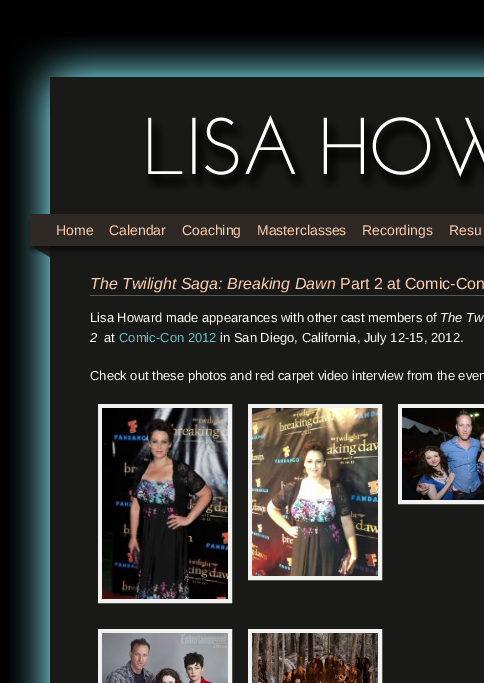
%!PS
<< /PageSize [484 683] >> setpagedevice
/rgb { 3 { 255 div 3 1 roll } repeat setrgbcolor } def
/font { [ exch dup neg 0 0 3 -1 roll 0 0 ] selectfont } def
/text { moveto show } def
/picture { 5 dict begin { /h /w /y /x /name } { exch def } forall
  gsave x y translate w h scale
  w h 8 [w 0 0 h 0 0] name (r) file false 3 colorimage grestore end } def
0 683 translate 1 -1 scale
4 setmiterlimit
0 0 0 rgb
0 0 484 683 rectfill
(img_01.rgb) 9 36 475 178 picture
(img_02.rgb) 9 214 475 50 picture
(img_03.rgb) 9 264 475 419 picture
86 86 86 rgb
90 295 394 1 rectfill
241 241 241 rgb
4 setlinewidth
100 406 130 195 rectstroke
(img_04.rgb) 102 408 126 191 picture
250 406 130 172 rectstroke
(img_05.rgb) 252 408 126 168 picture
400 406 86 96 rectstroke
(img_06.rgb) 402 408 82 92 picture
100 631 130 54 rectstroke
(img_07.rgb) 102 633 126 50 picture
250 631 130 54 rectstroke
(img_08.rgb) 252 633 126 50 picture
/LiberationSans-Regular 14 font
252 205 176 rgb
(Home) 56 235 text
(Calendar) 109 235 text
(Coaching) 182 235 text
(Masterclasses) 257 235 text
(Recordings) 362 235 text
(Resu) 449 235 text
/LiberationSans-Italic 16 font
(The Twilight Saga: Breaking Dawn) 90 289 text
/LiberationSans-Regular 16 font
(Part 2 at Comic-Con) 340 289 text
/LiberationSans-Regular 13 font
255 255 255 rgb
(Lisa Howard made appearances with other cast members of) 90 322 text
/LiberationSans-Italic 13 font
(The Tw) 440 322 text
(2) 90 342 text
/LiberationSans-Regular 13 font
(at) 104 342 text
105 190 199 rgb
(Comic-Con 2012) 119 342 text
255 255 255 rgb
(in San Diego, California, July 12-15, 2012.) 220 342 text
(Check out these photos and red carpet video interview from the even) 90 380 text
showpage
